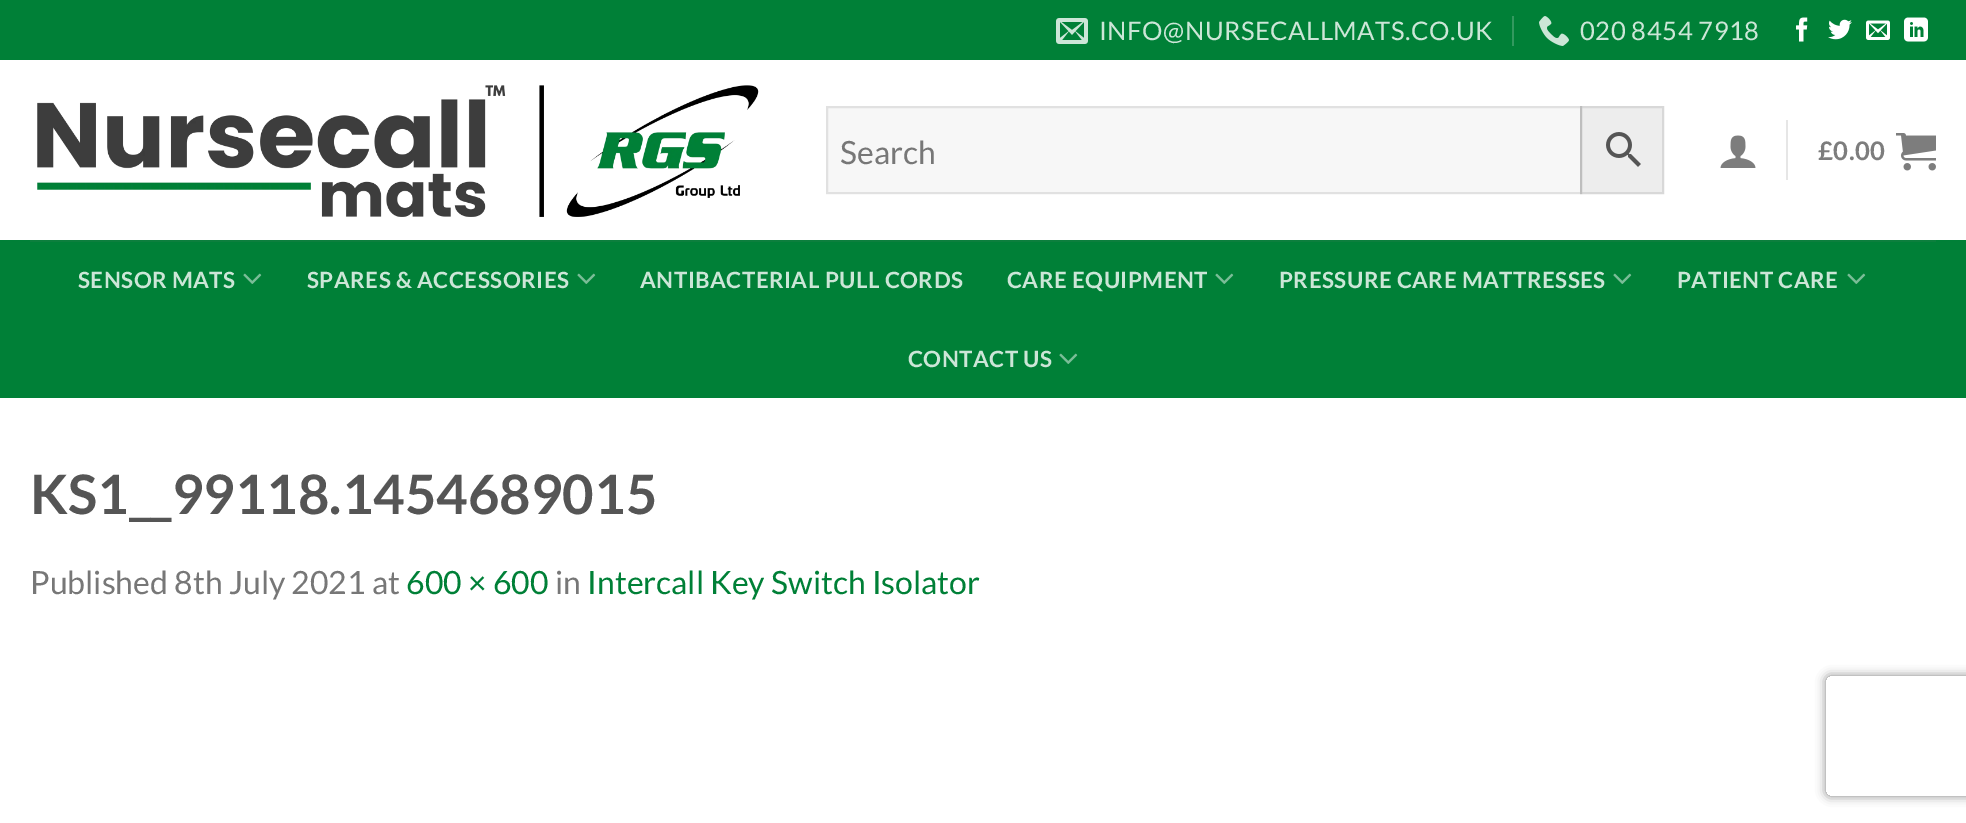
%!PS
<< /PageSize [1966 823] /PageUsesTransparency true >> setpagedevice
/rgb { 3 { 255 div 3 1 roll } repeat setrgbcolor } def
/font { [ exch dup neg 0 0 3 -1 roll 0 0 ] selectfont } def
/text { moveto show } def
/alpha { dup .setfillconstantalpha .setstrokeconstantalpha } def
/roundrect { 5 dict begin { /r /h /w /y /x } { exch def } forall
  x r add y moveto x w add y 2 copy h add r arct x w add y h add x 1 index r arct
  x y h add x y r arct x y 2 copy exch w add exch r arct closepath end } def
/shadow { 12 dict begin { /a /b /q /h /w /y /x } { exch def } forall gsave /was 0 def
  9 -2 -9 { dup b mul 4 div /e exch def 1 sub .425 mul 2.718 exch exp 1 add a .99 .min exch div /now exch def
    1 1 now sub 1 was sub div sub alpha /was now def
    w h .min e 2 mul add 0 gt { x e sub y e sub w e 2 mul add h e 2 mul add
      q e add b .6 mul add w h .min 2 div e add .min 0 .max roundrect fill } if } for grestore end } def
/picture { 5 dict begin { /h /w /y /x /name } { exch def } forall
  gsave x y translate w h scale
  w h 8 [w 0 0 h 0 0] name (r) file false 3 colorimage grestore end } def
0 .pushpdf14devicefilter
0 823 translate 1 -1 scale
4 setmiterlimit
255 255 255 rgb
0 0 1966 823 rectfill
0 128 55 rgb
0 0 1966 60 rectfill
(img_01.rgb) 1056 18 32 26 picture
51 153 95 rgb
1512 16 2 30 rectfill
(img_02.rgb) 1539 16 30 30 picture
(img_03.rgb) 1796 17 12 25 picture
(img_04.rgb) 1828 19 24 21 picture
(img_05.rgb) 1866 20 24 20 picture
(img_06.rgb) 1904 17 24 25 picture
(img_07.rgb) 37 85 722 132 picture
237 237 237 rgb
1581 107 moveto 82 0 rlineto 0 86 rlineto -82 0 rlineto closepath gsave fill grestore
216 216 216 rgb
2 setlinewidth
stroke
0.03 alpha
0 0 0 rgb
826 106 756 88 rectfill
0.09 alpha
827 107 754 86 rectstroke
1 alpha
(img_08.rgb) 1606 132 35 35 picture
(img_09.rgb) 1720 135 36 33 picture
230 230 230 rgb
1786 120 2 60 rectfill
(img_10.rgb) 1896 133 40 38 picture
0 128 55 rgb
0 240 1966 158 rectfill
12 127 61 rgb
30 240 1906 2 rectfill
(img_11.rgb) 243 273 19 11 picture
(img_11.rgb) 577 273 19 11 picture
(img_11.rgb) 1215 273 19 11 picture
(img_11.rgb) 1613 273 19 11 picture
(img_11.rgb) 1847 273 19 11 picture
(img_11.rgb) 1059 353 19 11 picture
gsave
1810 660 moveto 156 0 rlineto 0 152 rlineto -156 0 rlineto closepath 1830 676 moveto 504 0 rlineto 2 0 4 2 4 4 rcurveto 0 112 rlineto 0 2 -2 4 -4 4 rcurveto -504 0 rlineto -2 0 -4 -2 -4 -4 rcurveto 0 -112 rlineto 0 -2 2 -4 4 -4 rcurveto closepath eoclip newpath
128 128 128 rgb
1826 676 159 120 4 5 1 shadow
grestore
/Lato-Regular 25.6 font
204 230 215 rgb
1099 40 moveto 0.5 0 (INFO@NURSECALLMATS.CO.UK) ashow
1580 40 moveto 0.5 0 (020 8454 7918) ashow
/Lato-Regular 32 font
119 119 119 rgb
(Search) 840 164 text
/Lato-Bold 25.6 font
125 125 125 rgb
1818 160 moveto 0.5 0 (£0.00) ashow
/Lato-Bold 22.4 font
204 230 215 rgb
78 288 moveto 0.45 0 (SENSOR MATS) ashow
307 288 moveto 0.45 0 (SPARES & ACCESSORIES) ashow
640 288 moveto 0.45 0 (ANTIBACTERIAL PULL CORDS) ashow
1007 288 moveto 0.45 0 (CARE EQUIPMENT) ashow
1279 288 moveto 0.45 0 (PRESSURE CARE MATTRESSES) ashow
1677 288 moveto 0.45 0 (PATIENT CARE) ashow
908 367 moveto 0.45 0 (CONTACT US) ashow
/Lato-Bold 54.4 font
85 85 85 rgb
(KS1__99118.1454689015) 30 514 text
/Lato-Regular 32 font
119 119 119 rgb
(Published 8th July 2021 at) 30 594 text
0 128 55 rgb
(600 × 600) 406 594 text
119 119 119 rgb
(in) 555 594 text
0 128 55 rgb
(Intercall Key Switch Isolator) 587 594 text
.poppdf14devicefilter showpage
